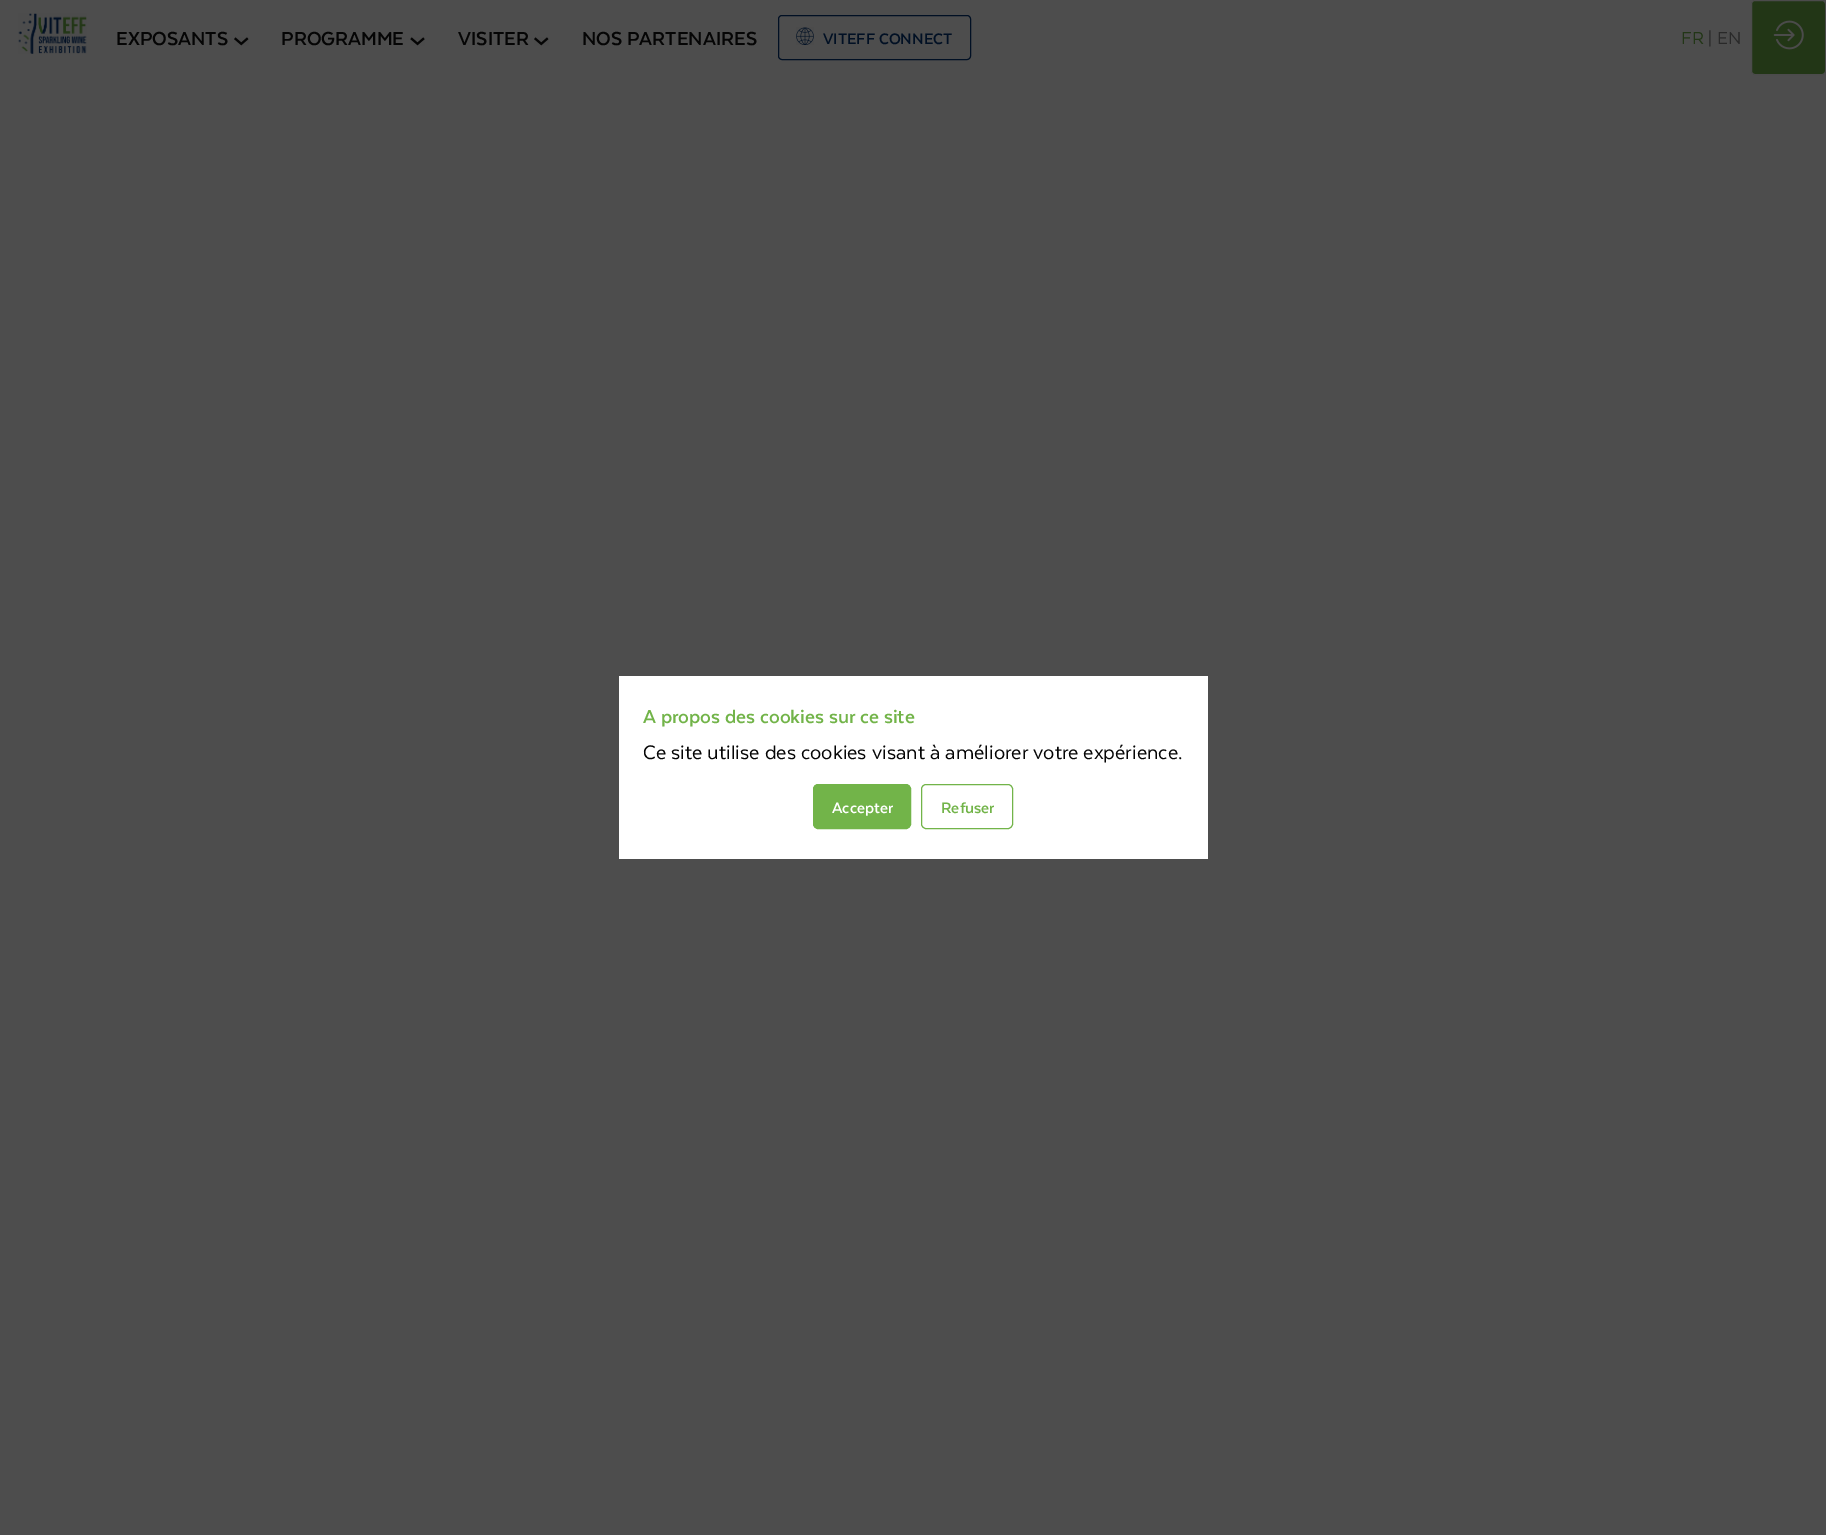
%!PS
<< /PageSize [1826 1535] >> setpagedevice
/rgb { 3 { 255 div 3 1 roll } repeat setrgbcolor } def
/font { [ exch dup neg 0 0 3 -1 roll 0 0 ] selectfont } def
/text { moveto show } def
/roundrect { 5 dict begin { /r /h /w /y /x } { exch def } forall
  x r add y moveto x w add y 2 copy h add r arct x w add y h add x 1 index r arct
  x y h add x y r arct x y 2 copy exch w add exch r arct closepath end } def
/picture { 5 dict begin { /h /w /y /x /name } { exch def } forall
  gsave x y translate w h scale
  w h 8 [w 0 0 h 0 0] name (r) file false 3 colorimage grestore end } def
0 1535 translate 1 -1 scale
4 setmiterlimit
77 77 77 rgb
0 0 1826 1535 rectfill
(img_01.rgb) 18 13 69 41 picture
(img_02.rgb) 234 37 15 9 picture
(img_03.rgb) 410 37 15 9 picture
(img_02.rgb) 534 37 15 9 picture
1 16 36 rgb
778.5 15.5 192 44 3.5 roundrect stroke
(img_04.rgb) 796 27 18 18 picture
34 54 22 rgb
1751.5 0.5 74 74 3.5 roundrect gsave fill grestore
75 75 75 rgb
stroke
(img_05.rgb) 1773 20 31 30 picture
255 255 255 rgb
619 676 589 183 rectfill
114 180 73 rgb
813.5 784.5 97 44 4.5 roundrect gsave fill grestore
stroke
921.5 784.5 91 44 4.5 roundrect stroke
/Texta-Bold 21.7 font
5 5 5 rgb
(EXPOSANTS) 116 45 text
(PROGRAMME) 281 45 text
(VISITER) 458 45 text
(NOS PARTENAIRES) 582 45 text
/Texta-Bold 17.5 font
1 16 36 rgb
(VITEFF CONNECT) 823 44 text
/Texta-Regular 20 font
34 54 22 rgb
(FR) 1681 44 text
41 41 41 rgb
(|) 1708 44 text
(EN) 1717 44 text
/Texta-Bold 21.7 font
114 180 73 rgb
(A propos des cookies sur ce site) 643 723 text
/Texta-Regular 22.5 font
5 5 5 rgb
(Ce site utilise des cookies visant à améliorer votre expérience.) 643 759 text
/Texta-Bold 17.5 font
255 255 255 rgb
(Accepter) 832 813 text
114 180 73 rgb
(Refuser) 941 813 text
showpage
